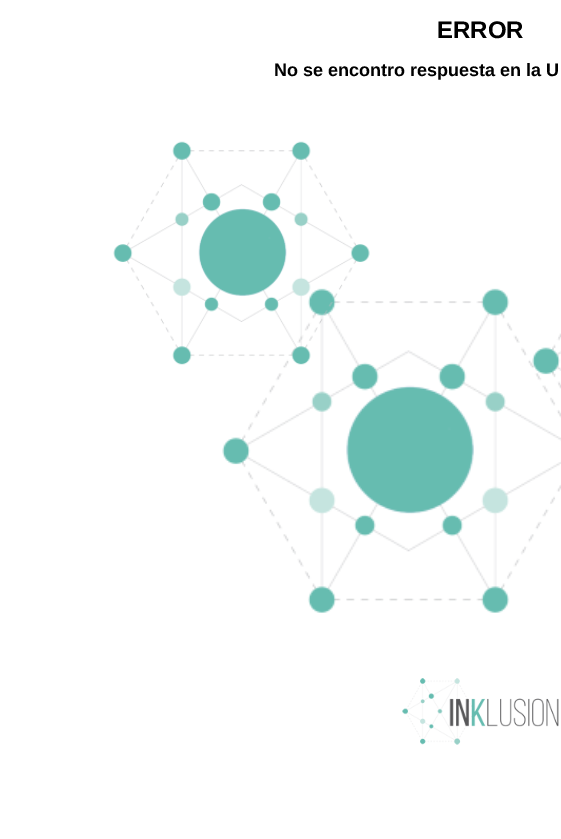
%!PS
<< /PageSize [561 839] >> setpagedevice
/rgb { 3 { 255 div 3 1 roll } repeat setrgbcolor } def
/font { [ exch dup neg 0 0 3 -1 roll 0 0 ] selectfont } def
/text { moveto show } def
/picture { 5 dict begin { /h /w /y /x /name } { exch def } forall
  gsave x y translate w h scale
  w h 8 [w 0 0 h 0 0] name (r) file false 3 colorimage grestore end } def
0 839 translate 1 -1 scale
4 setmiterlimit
255 255 255 rgb
0 0 561 839 rectfill
(img_02.rgb) 222 288 339 325 picture
(img_01.rgb) 113 141 257 224 picture
(img_03.rgb) 532 333 29 56 picture
(img_04.rgb) 402 678 157 67 picture
/LiberationSans-Bold 24 font
0 0 0 rgb
(ERROR) 437 38 text
/LiberationSans-Bold 18 font
(No se encontro respuesta en la U) 274 76 text
showpage
